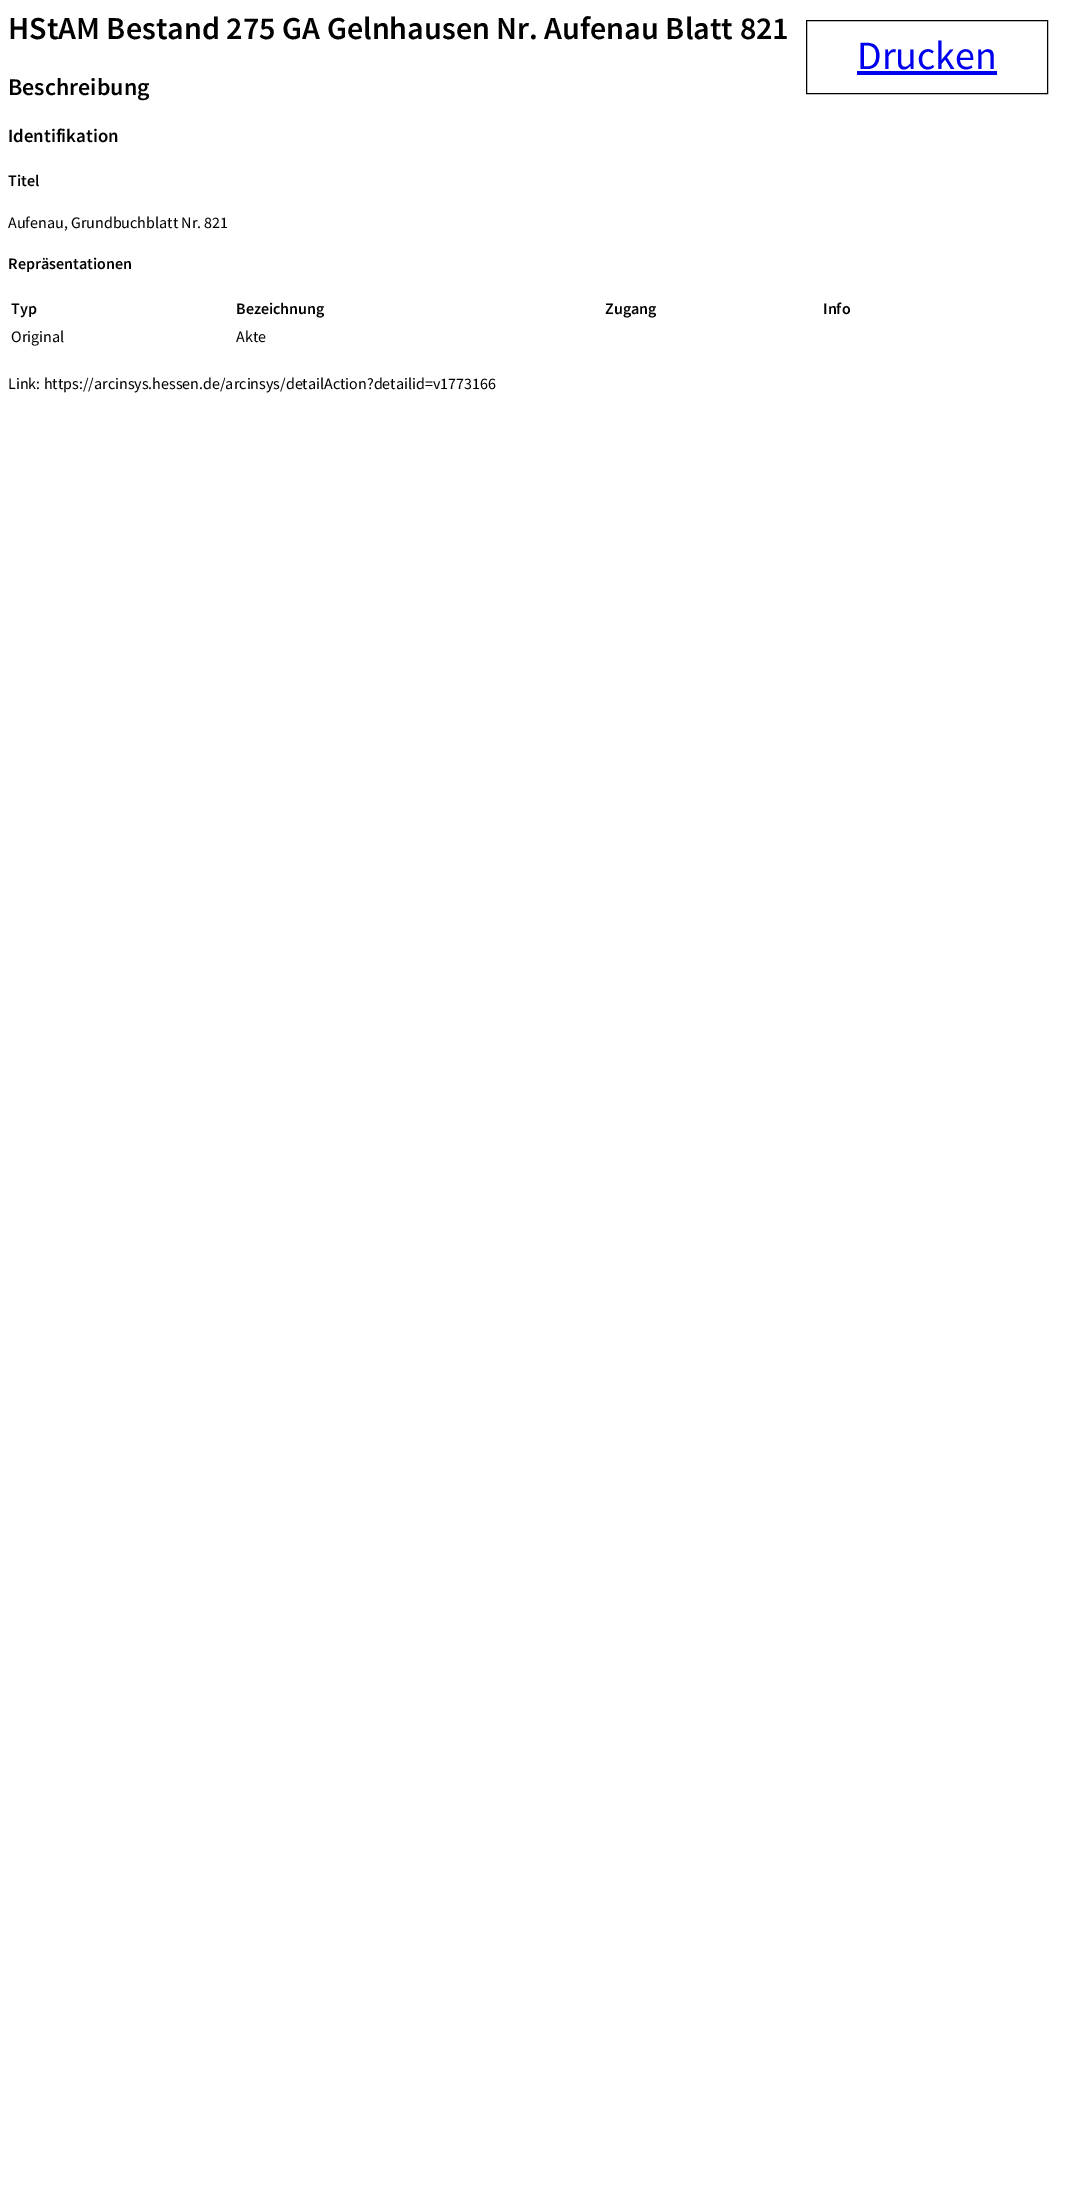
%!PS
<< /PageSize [1068 2207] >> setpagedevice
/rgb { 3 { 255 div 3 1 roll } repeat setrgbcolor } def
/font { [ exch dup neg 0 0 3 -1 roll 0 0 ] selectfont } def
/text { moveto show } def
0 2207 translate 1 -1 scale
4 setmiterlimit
255 255 255 rgb
0 0 1068 2207 rectfill
0 0 0 rgb
806.5 20.5 241 73 rectstroke
0 0 238 rgb
857 71 140 4 rectfill
/SourceSansPro-SemiBold 32 font
0 0 0 rgb
(HStAM Bestand 275 GA Gelnhausen Nr. Aufenau Blatt 821) 8 39 text
/SourceSansPro-Regular 40 font
0 0 238 rgb
(Drucken) 857 69 text
/SourceSansPro-SemiBold 24 font
0 0 0 rgb
(Beschreibung) 8 95 text
/SourceSansPro-SemiBold 18.75 font
(Identifikation) 8 142 text
/SourceSansPro-SemiBold 16 font
(Titel) 8 186 text
/SourceSansPro-Regular 16 font
(Aufenau, Grundbuchblatt Nr. 821) 8 228 text
/SourceSansPro-SemiBold 16 font
(Repräsentationen) 8 269 text
(Typ) 11 314 text
(Bezeichnung) 236 314 text
(Zugang) 605 314 text
(Info) 823 314 text
/SourceSansPro-Regular 16 font
(Original) 11 342 text
(Akte) 236 342 text
(Link: https://arcinsys.hessen.de/arcinsys/detailAction?detailid=v1773166) 8 389 text
showpage
